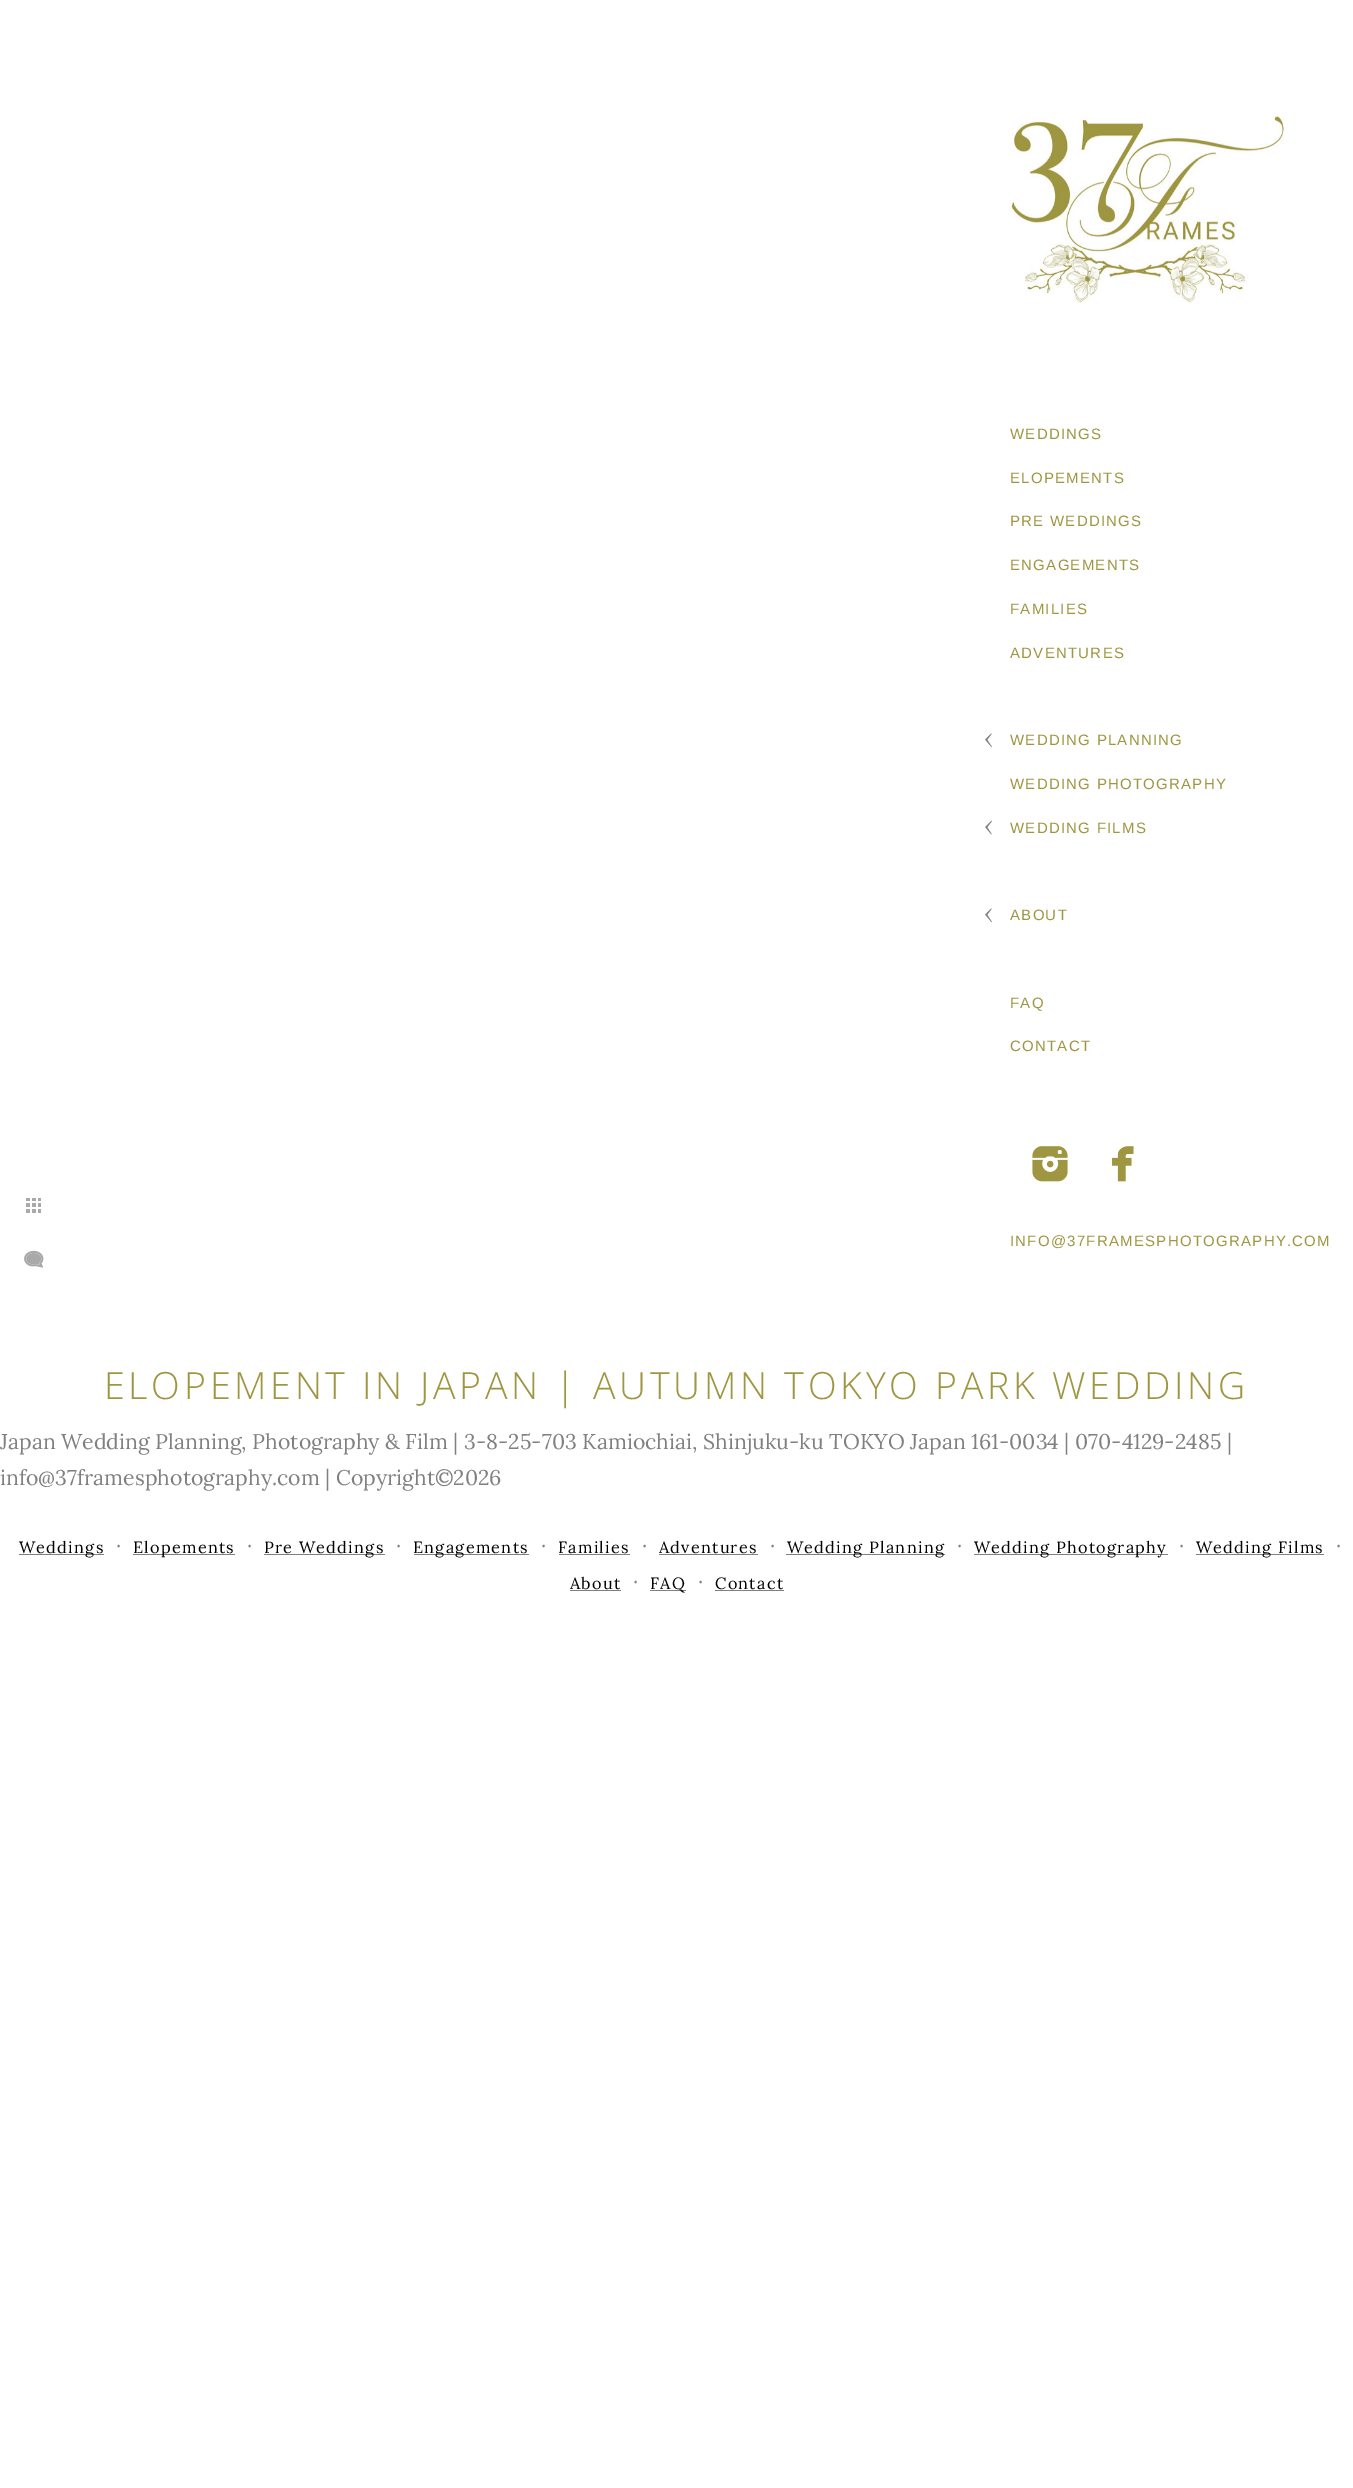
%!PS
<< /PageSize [1353 2488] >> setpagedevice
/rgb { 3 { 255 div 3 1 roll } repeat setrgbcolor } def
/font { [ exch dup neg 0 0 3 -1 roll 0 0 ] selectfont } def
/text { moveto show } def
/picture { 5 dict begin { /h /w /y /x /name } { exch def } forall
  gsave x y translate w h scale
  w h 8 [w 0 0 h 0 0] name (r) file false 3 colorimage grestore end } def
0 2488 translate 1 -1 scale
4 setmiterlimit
255 255 255 rgb
0 0 1353 2488 rectfill
(img_01.rgb) 26 1198 15 15 picture
(img_02.rgb) 24 1250 20 18 picture
(img_03.rgb) 1010 113 274 190 picture
(img_04.rgb) 985 733 7 15 picture
(img_05.rgb) 985 820 7 15 picture
(img_04.rgb) 985 908 7 15 picture
(img_06.rgb) 1032 1146 36 36 picture
(img_07.rgb) 1112 1146 22 36 picture
128 128 128 rgb
19 1554 85 1 rectfill
133 1554 102 1 rectfill
264 1554 121 1 rectfill
414 1554 115 1 rectfill
559 1554 71 1 rectfill
659 1554 99 1 rectfill
786 1554 159 1 rectfill
974 1554 194 1 rectfill
1196 1554 128 1 rectfill
570 1590 51 1 rectfill
650 1590 36 1 rectfill
715 1590 69 1 rectfill
/LiberationSans-Regular 15 font
158 150 64 rgb
1010 439 moveto 1.25 0 (WEDDINGS) ashow
1010 483 moveto 1.25 0 (ELOPEMENTS) ashow
1010 526 moveto 1.25 0 (PRE WEDDINGS) ashow
1010 570 moveto 1.25 0 (ENGAGEMENTS) ashow
1010 614 moveto 1.25 0 (FAMILIES) ashow
1010 658 moveto 1.25 0 (ADVENTURES) ashow
1010 745 moveto 1.25 0 (WEDDING PLANNING) ashow
1010 789 moveto 1.25 0 (WEDDING PHOTOGRAPHY) ashow
1010 833 moveto 1.25 0 (WEDDING FILMS) ashow
1010 920 moveto 1.25 0 (ABOUT) ashow
1010 1008 moveto 1.25 0 (FAQ) ashow
1010 1051 moveto 1.25 0 (CONTACT) ashow
1010 1246 moveto 1.25 0 (INFO@37FRAMESPHOTOGRAPHY.COM) ashow
/OpenSans-Light 37.5 font
104 1399 moveto 3.75 0 (ELOPEMENT IN JAPAN | AUTUMN TOKYO PARK WEDDING) ashow
/Lora-Regular 21.25 font
128 128 128 rgb
(Japan Wedding Planning, Photography & Film | 3-8-25-703 Kamiochiai, Shinjuku-ku TOKYO Japan 161-0034 | 070-4129-2485 |) 0 1449 text
(info@37framesphotography.com | Copyright©2026) 0 1485 text
/Lora-Regular 16.25 font
0 0 0 rgb
19 1553 moveto 1.25 0 (Weddings) ashow
/Lora-Regular 21.25 font
128 128 128 rgb
(·) 116 1553 text
/Lora-Regular 16.25 font
0 0 0 rgb
133 1553 moveto 1.25 0 (Elopements) ashow
/Lora-Regular 21.25 font
128 128 128 rgb
(·) 247 1553 text
/Lora-Regular 16.25 font
0 0 0 rgb
264 1553 moveto 1.25 0 (Pre Weddings) ashow
/Lora-Regular 21.25 font
128 128 128 rgb
(·) 396 1553 text
/Lora-Regular 16.25 font
0 0 0 rgb
413 1553 moveto 1.25 0 (Engagements) ashow
/Lora-Regular 21.25 font
128 128 128 rgb
(·) 541 1553 text
/Lora-Regular 16.25 font
0 0 0 rgb
558 1553 moveto 1.25 0 (Families) ashow
/Lora-Regular 21.25 font
128 128 128 rgb
(·) 642 1553 text
/Lora-Regular 16.25 font
0 0 0 rgb
659 1553 moveto 1.25 0 (Adventures) ashow
/Lora-Regular 21.25 font
128 128 128 rgb
(·) 770 1553 text
/Lora-Regular 16.25 font
0 0 0 rgb
787 1553 moveto 1.25 0 (Wedding Planning) ashow
/Lora-Regular 21.25 font
128 128 128 rgb
(·) 957 1553 text
/Lora-Regular 16.25 font
0 0 0 rgb
974 1553 moveto 1.25 0 (Wedding Photography) ashow
/Lora-Regular 21.25 font
128 128 128 rgb
(·) 1179 1553 text
/Lora-Regular 16.25 font
0 0 0 rgb
1196 1553 moveto 1.25 0 (Wedding Films) ashow
/Lora-Regular 21.25 font
128 128 128 rgb
(·) 1336 1553 text
/Lora-Regular 16.25 font
0 0 0 rgb
570 1589 moveto 1.25 0 (About) ashow
/Lora-Regular 21.25 font
128 128 128 rgb
(·) 633 1589 text
/Lora-Regular 16.25 font
0 0 0 rgb
650 1589 moveto 1.25 0 (FAQ) ashow
/Lora-Regular 21.25 font
128 128 128 rgb
(·) 698 1589 text
/Lora-Regular 16.25 font
0 0 0 rgb
715 1589 moveto 1.25 0 (Contact) ashow
showpage
